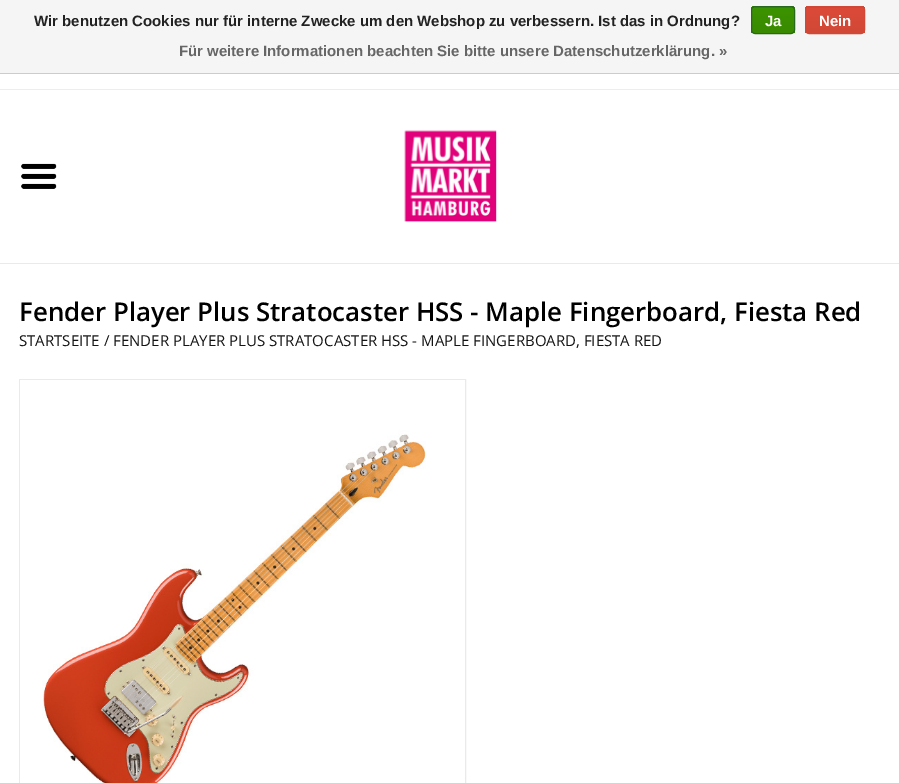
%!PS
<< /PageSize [899 783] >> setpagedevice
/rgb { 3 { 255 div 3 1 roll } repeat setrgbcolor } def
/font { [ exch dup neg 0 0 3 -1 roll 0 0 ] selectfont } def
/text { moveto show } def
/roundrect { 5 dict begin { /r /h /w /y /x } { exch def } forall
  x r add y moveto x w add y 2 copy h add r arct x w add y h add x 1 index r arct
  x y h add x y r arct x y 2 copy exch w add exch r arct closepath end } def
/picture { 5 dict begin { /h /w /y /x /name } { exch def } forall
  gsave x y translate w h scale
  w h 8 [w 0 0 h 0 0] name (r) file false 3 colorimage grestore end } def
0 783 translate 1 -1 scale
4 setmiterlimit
255 255 255 rgb
0 0 899 783 rectfill
245 245 245 rgb
0 0 899 73 rectfill
204 204 204 rgb
0 73 899 1 rectfill
gsave
751 6 44 28 4 roundrect clip newpath
gsave 751 6 moveto 44 0 rlineto 0 2 rlineto -44 0 rlineto closepath clip newpath
<< /ShadingType 2 /ColorSpace /DeviceRGB /Coords [773 -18 773 7.5] /Extend [true true] /Function << /FunctionType 2 /Domain [0 1] /C0 [0.235 0.576 0] /C1 [0.224 0.541 0] /N 1 >> >> shfill grestore
gsave 751 8 moveto 44 0 rlineto 0 25 rlineto -44 0 rlineto closepath clip newpath
<< /ShadingType 2 /ColorSpace /DeviceRGB /Coords [773 7.5 773 33] /Extend [true true] /Function << /FunctionType 2 /Domain [0 1] /C0 [0.235 0.576 0] /C1 [0.224 0.541 0] /N 1 >> >> shfill grestore
grestore
41 105 29 rgb
751.5 6.5 43 27 3.5 roundrect stroke
gsave
805 6 60 28 4 roundrect clip newpath
gsave 805 6 moveto 60 0 rlineto 0 2 rlineto -60 0 rlineto closepath clip newpath
<< /ShadingType 2 /ColorSpace /DeviceRGB /Coords [835 -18 835 7.5] /Extend [true true] /Function << /FunctionType 2 /Domain [0 1] /C0 [0.863 0.29 0.22] /C1 [0.82 0.282 0.212] /N 1 >> >> shfill grestore
gsave 805 8 moveto 60 0 rlineto 0 25 rlineto -60 0 rlineto closepath clip newpath
<< /ShadingType 2 /ColorSpace /DeviceRGB /Coords [835 7.5 835 33] /Extend [true true] /Function << /FunctionType 2 /Domain [0 1] /C0 [0.863 0.29 0.22] /C1 [0.82 0.282 0.212] /N 1 >> >> shfill grestore
grestore
209 72 54 rgb
805.5 6.5 59 27 3.5 roundrect stroke
237 237 237 rgb
0 89 899 1 rectfill
234 234 234 rgb
0 263 899 1 rectfill
(img_01.rgb) 404 130 93 92 picture
(img_02.rgb) 21 163 36 26 picture
19.5 379.5 446 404 rectstroke
(img_03.rgb) 20 380 445 403 picture
/LiberationSans-Bold 15 font
34 34 34 rgb
(Wir benutzen Cookies nur für interne Zwecke um den Webshop zu verbessern. Ist das in Ordnung?) 34 26 text
255 255 255 rgb
(Ja) 765 26 text
(Nein) 819 26 text
102 102 102 rgb
(Für weitere Informationen beachten Sie bitte unsere Datenschutzerklärung. ») 179 56 text
/OpenSans-SemiBold 25.8 font
0 0 0 rgb
(Fender Player Plus Stratocaster HSS - Maple Fingerboard, Fiesta Red) 19 321 text
/OpenSans-Regular 15 font
20 20 20 rgb
(STARTSEITE / FENDER PLAYER PLUS STRATOCASTER HSS - MAPLE FINGERBOARD, FIESTA RED) 19 346 text
showpage
